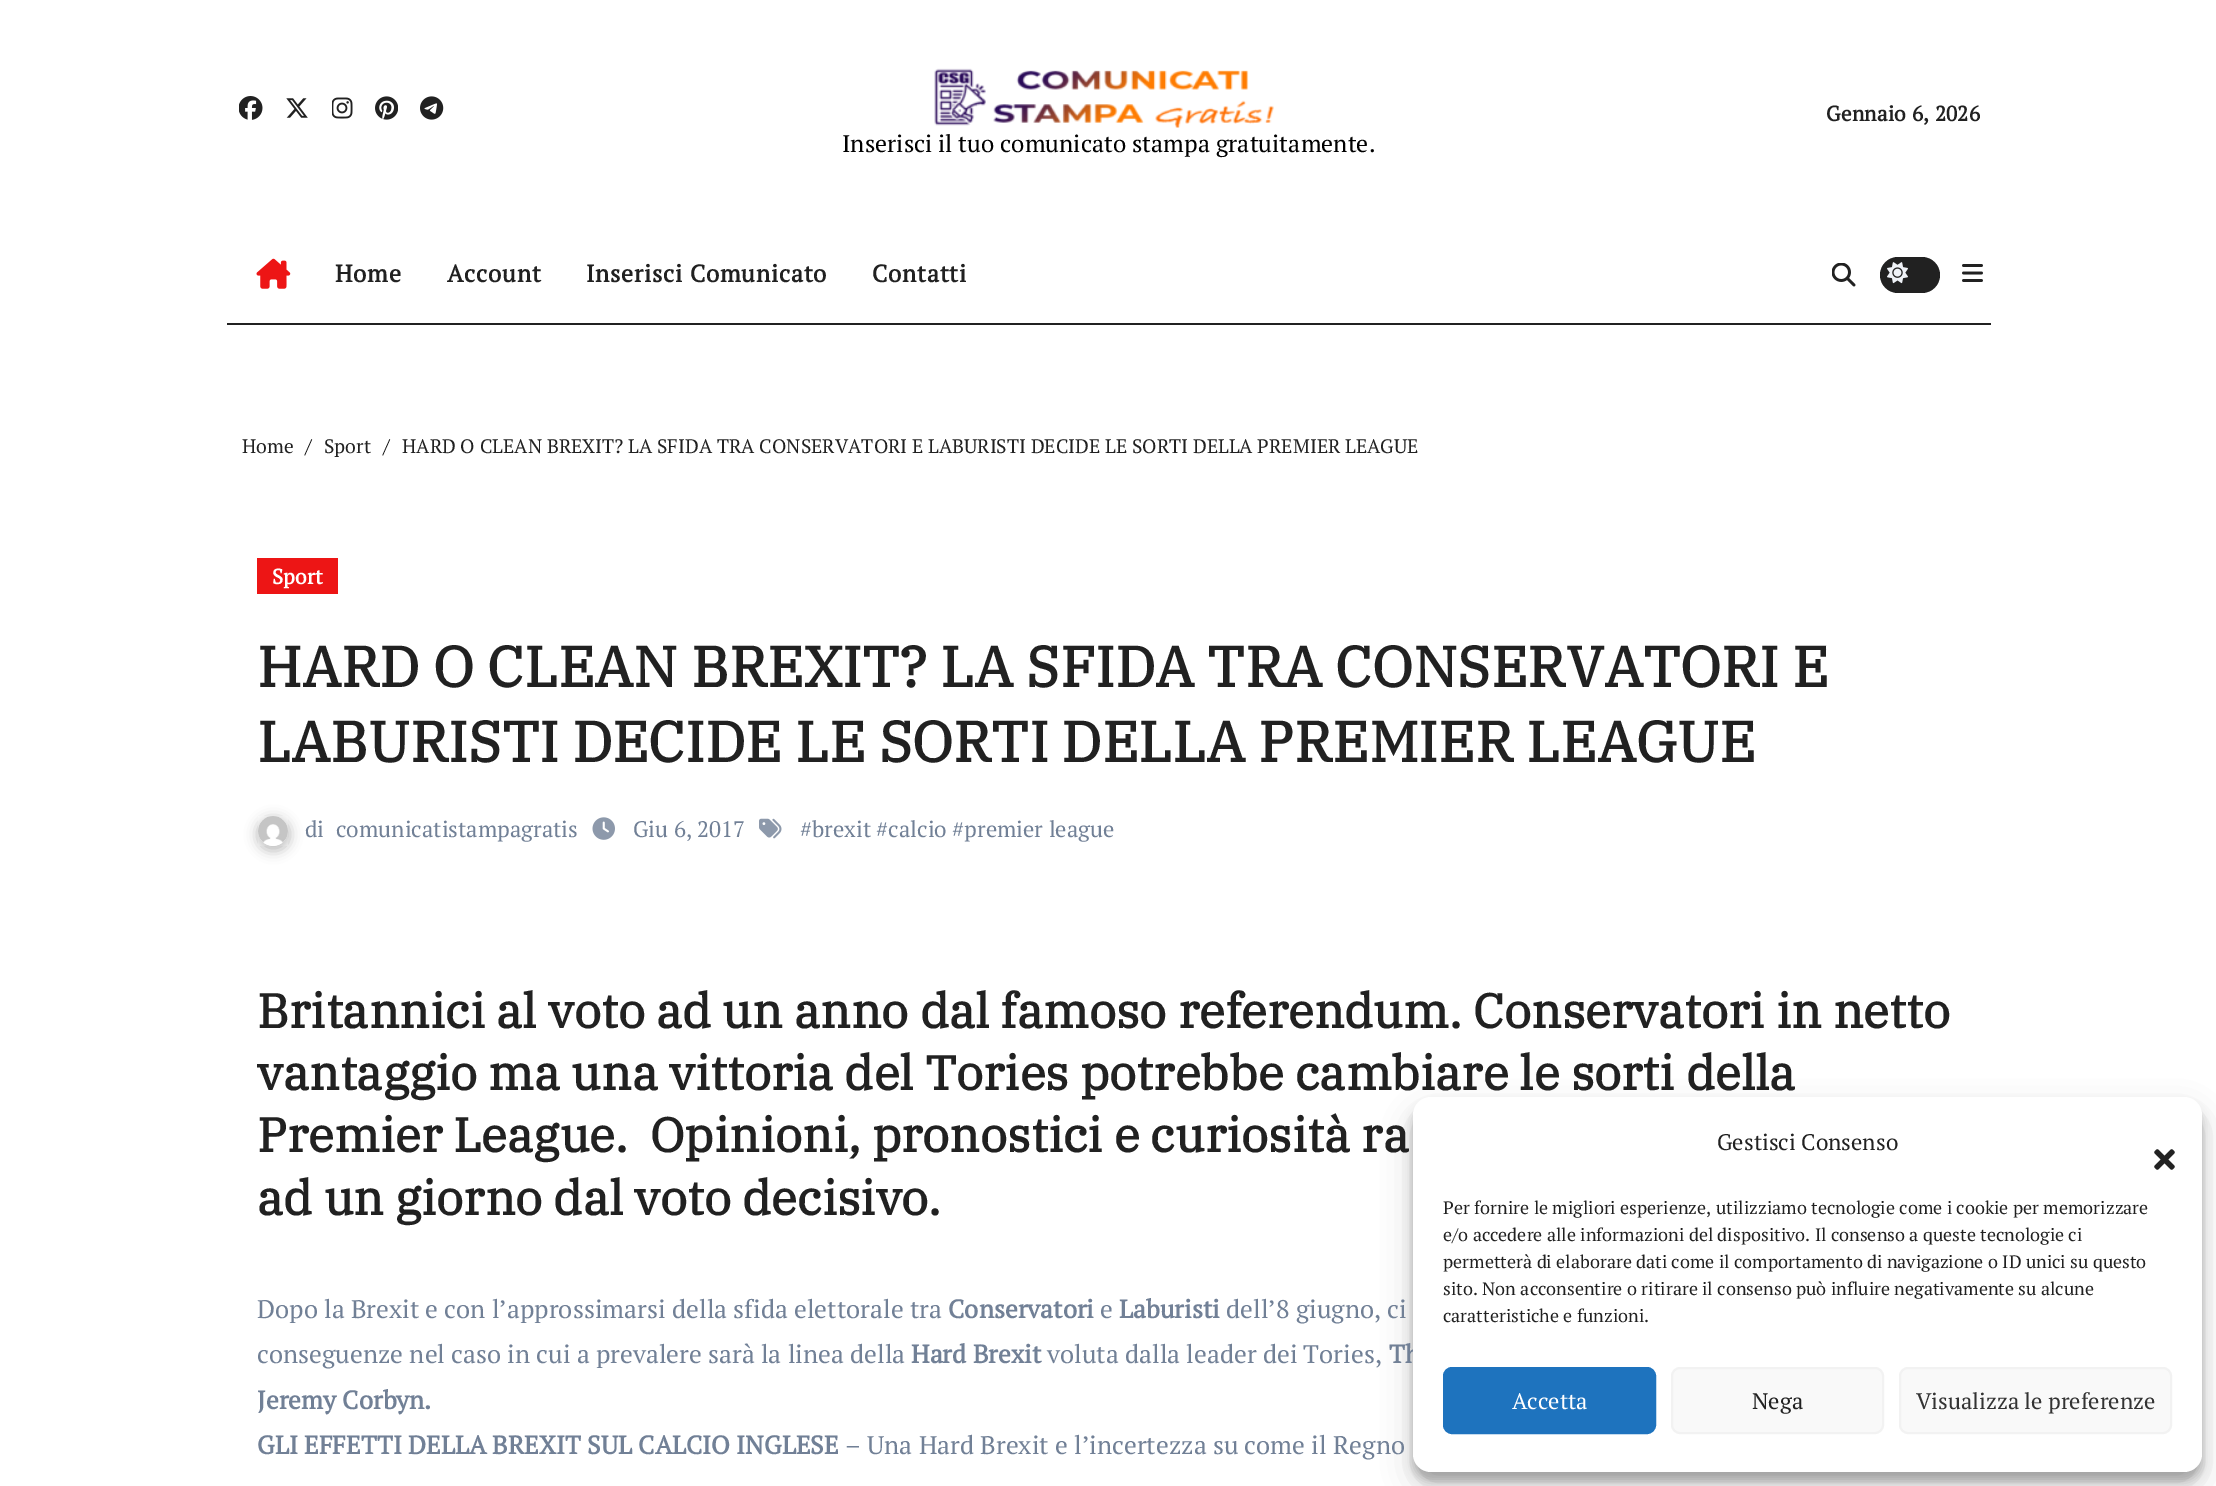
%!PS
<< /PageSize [2216 1486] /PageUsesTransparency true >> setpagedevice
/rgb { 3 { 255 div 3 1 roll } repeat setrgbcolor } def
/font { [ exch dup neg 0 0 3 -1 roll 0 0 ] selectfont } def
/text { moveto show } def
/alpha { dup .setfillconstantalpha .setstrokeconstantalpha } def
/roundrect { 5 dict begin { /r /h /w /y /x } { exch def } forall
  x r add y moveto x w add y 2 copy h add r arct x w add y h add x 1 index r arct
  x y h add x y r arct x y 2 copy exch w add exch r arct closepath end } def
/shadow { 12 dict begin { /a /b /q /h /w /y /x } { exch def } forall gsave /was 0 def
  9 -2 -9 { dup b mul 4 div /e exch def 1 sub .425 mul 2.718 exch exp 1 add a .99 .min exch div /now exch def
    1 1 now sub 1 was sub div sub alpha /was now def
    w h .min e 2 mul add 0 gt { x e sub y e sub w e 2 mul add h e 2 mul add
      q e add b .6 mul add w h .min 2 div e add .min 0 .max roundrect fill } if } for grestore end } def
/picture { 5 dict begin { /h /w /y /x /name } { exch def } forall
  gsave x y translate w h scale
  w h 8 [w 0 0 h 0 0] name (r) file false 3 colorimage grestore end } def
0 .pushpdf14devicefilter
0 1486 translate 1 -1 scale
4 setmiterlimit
255 255 255 rgb
0 0 2216 1486 rectfill
(img_01.rgb) 239 96 24 24 picture
(img_02.rgb) 286 98 22 20 picture
(img_03.rgb) 332 97 21 22 picture
(img_04.rgb) 375 96 23 24 picture
(img_05.rgb) 420 96 24 24 picture
(img_06.rgb) 934 68 340 60 picture
33 33 33 rgb
227 323 1764 2 rectfill
(img_07.rgb) 256 258 35 31 picture
(img_08.rgb) 1832 263 24 24 picture
1880 257 60 36 18 roundrect fill
(img_09.rgb) 1887 262 21 22 picture
(img_10.rgb) 1962 264 21 18 picture
237 21 21 rgb
257 558 81 36 rectfill
33 33 33 rgb
257 818 33 33 16.5 6 0.3 shadow
(img_11.rgb) 258 816 30 30 picture
(img_12.rgb) 592 817 23 23 picture
(img_13.rgb) 759 818 23 21 picture
0 0 0 rgb
1413 1106 789 375 18 4.5 0.23 shadow
1413 1112 789 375 18 15 0.19 shadow
/PTSerif-Bold 21 font
33 33 33 rgb
1826 121 moveto 0.25 0 (Gennaio 6, 2026) ashow
/PTSerif-Regular 24 font
0 0 0 rgb
(Inserisci il tuo comunicato stampa gratuitamente.) 842 152 text
/PTSerif-Bold 24 font
33 33 33 rgb
335 282 moveto 0.75 0 (Home) ashow
447 282 moveto 0.75 0 (Account) ashow
586 282 moveto 0.75 0 (Inserisci Comunicato) ashow
872 282 moveto 0.75 0 (Contatti) ashow
/PTSerif-Regular 19.5 font
(Home) 242 453 text
0 0 0 rgb
(/) 305 453 text
33 33 33 rgb
(Sport) 324 453 text
0 0 0 rgb
(/) 383 453 text
33 33 33 rgb
(HARD O CLEAN BREXIT? LA SFIDA TRA CONSERVATORI E LABURISTI DECIDE LE SORTI DELLA PREMIER LEAGUE) 402 453 text
/PTSerif-Bold 21 font
255 255 255 rgb
(Sport) 272 584 text
/IBMPlexSerif-Bold 57 font
33 33 33 rgb
(HARD O CLEAN BREXIT? LA SFIDA TRA CONSERVATORI E) 257 687 text
(LABURISTI DECIDE LE SORTI DELLA PREMIER LEAGUE) 257 762 text
/PTSerif-Regular 22.5 font
113 128 150 rgb
(di) 305 837 text
(comunicatistampagratis) 336 837 text
(Giu 6, 2017) 633 837 text
(#brexit #calcio #premier league) 800 837 text
/IBMPlexSerif-Bold 48 font
33 33 33 rgb
(Britannici al voto ad un anno dal famoso referendum. Conservatori in netto) 257 1028 text
(vantaggio ma una vittoria del Tories potrebbe cambiare le sorti della) 257 1090 text
(Premier League.  Opinioni, pronostici e curiosità ra) 257 1152 text
(ad un giorno dal voto decisivo.) 257 1215 text
/PTSerif-Regular 25.5 font
113 128 150 rgb
(Dopo la Brexit e con l’approssimarsi della sfida elettorale tra) 257 1318 text
/PTSerif-Bold 25.5 font
(Conservatori) 948 1318 text
/PTSerif-Regular 25.5 font
(e) 1100 1318 text
/PTSerif-Bold 25.5 font
(Laburisti) 1119 1318 text
/PTSerif-Regular 25.5 font
(dell’8 giugno, ci) 1226 1318 text
(conseguenze nel caso in cui a prevalere sarà la linea della) 257 1363 text
/PTSerif-Bold 25.5 font
(Hard Brexit) 911 1363 text
/PTSerif-Regular 25.5 font
(voluta dalla leader dei Tories,) 1047 1363 text
/PTSerif-Bold 25.5 font
(Th) 1389 1363 text
(Jeremy Corbyn.) 257 1409 text
(GLI EFFETTI DELLA BREXIT SUL CALCIO INGLESE) 257 1454 text
/PTSerif-Regular 25.5 font
(– Una Hard Brexit e l’incertezza su come il Regno) 845 1454 text
255 255 255 rgb
1413 1097 789 375 18 roundrect fill
/PTSerif-Regular 22.5 font
33 33 33 rgb
(Gestisci Consenso) 1717 1150 text
(img_14.rgb) 2154 1149 21 21 picture
/PTSerif-Regular 18 font
(Per fornire le migliori esperienze, utilizziamo tecnologie come i cookie per memorizzare) 1443 1214 text
(e/o accedere alle informazioni del dispositivo. Il consenso a queste tecnologie ci) 1443 1241 text
(permetterà di elaborare dati come il comportamento di navigazione o ID unici su questo) 1443 1268 text
(sito. Non acconsentire o ritirare il consenso può influire negativamente su alcune) 1443 1295 text
(caratteristiche e funzioni.) 1443 1322 text
30 115 190 rgb
1444 1368 211 65 8 roundrect gsave fill grestore
2 setlinewidth
stroke
/PTSerif-Regular 22.5 font
255 255 255 rgb
(Accetta) 1512 1409 text
249 249 249 rgb
1672 1368 211 65 8 roundrect gsave fill grestore
242 242 242 rgb
stroke
33 33 33 rgb
(Nega) 1752 1409 text
249 249 249 rgb
1900 1368 271 65 8 roundrect gsave fill grestore
242 242 242 rgb
stroke
51 51 51 rgb
(Visualizza le preferenze) 1916 1409 text
.poppdf14devicefilter showpage
